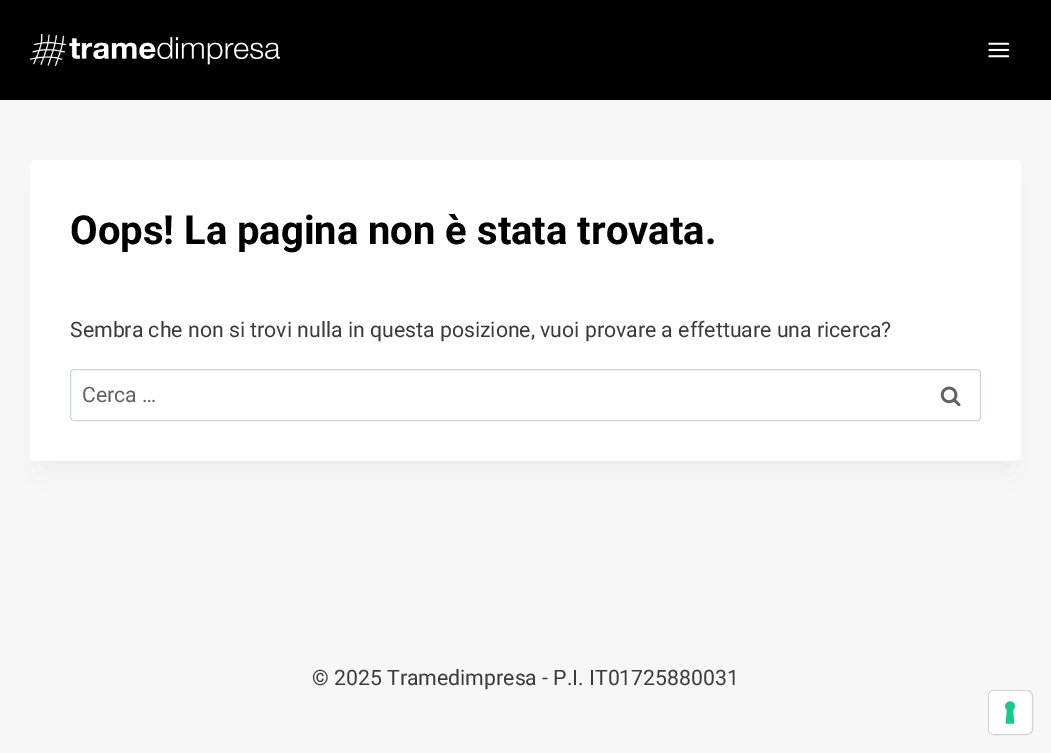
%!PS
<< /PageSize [1051 753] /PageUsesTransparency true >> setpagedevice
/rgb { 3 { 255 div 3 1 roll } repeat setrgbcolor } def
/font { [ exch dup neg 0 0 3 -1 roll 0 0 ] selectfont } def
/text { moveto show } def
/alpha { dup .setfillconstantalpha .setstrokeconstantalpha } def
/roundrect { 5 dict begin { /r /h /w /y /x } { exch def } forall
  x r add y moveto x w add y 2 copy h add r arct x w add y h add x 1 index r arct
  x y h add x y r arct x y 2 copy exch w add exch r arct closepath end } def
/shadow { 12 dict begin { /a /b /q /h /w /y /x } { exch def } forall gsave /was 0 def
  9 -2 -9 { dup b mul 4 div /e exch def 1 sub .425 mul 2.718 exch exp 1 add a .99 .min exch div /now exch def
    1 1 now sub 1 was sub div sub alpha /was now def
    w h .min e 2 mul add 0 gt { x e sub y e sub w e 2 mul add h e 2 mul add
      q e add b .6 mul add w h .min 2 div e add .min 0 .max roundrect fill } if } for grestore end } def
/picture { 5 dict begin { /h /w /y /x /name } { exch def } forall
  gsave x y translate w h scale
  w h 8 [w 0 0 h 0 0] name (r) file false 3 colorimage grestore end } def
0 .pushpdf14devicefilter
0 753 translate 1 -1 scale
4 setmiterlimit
247 247 247 rgb
0 0 1051 753 rectfill
0 0 0 rgb
0 0 1051 100 rectfill
(img_01.rgb) 30 33 250 34 picture
(img_02.rgb) 988 42 22 16 picture
43 191 966 277 0 15.5 0.05 shadow
255 255 255 rgb
30 160 991 301 5 roundrect fill
203 213 224 rgb
70.5 369.5 910 51 3.5 roundrect stroke
(img_03.rgb) 940 386 21 20 picture
210 210 210 rgb
988.5 690.5 44 44 5.5 roundrect stroke
255 255 255 rgb
989 691 42 43 5 roundrect fill
(img_04.rgb) 1005 701 10 23 picture
/Roboto-Bold 40 font
0 0 0 rgb
(Oops! La pagina non è stata trovata.) 70 244 text
/Roboto-Regular 21.25 font
59 59 59 rgb
(Sembra che non si trovi nulla in questa posizione, vuoi provare a effettuare una ricerca?) 70 337 text
98 98 98 rgb
(Cerca …) 82 402 text
59 59 59 rgb
(© 2025 Tramedimpresa - P.I. IT01725880031) 312 685 text
.poppdf14devicefilter showpage
